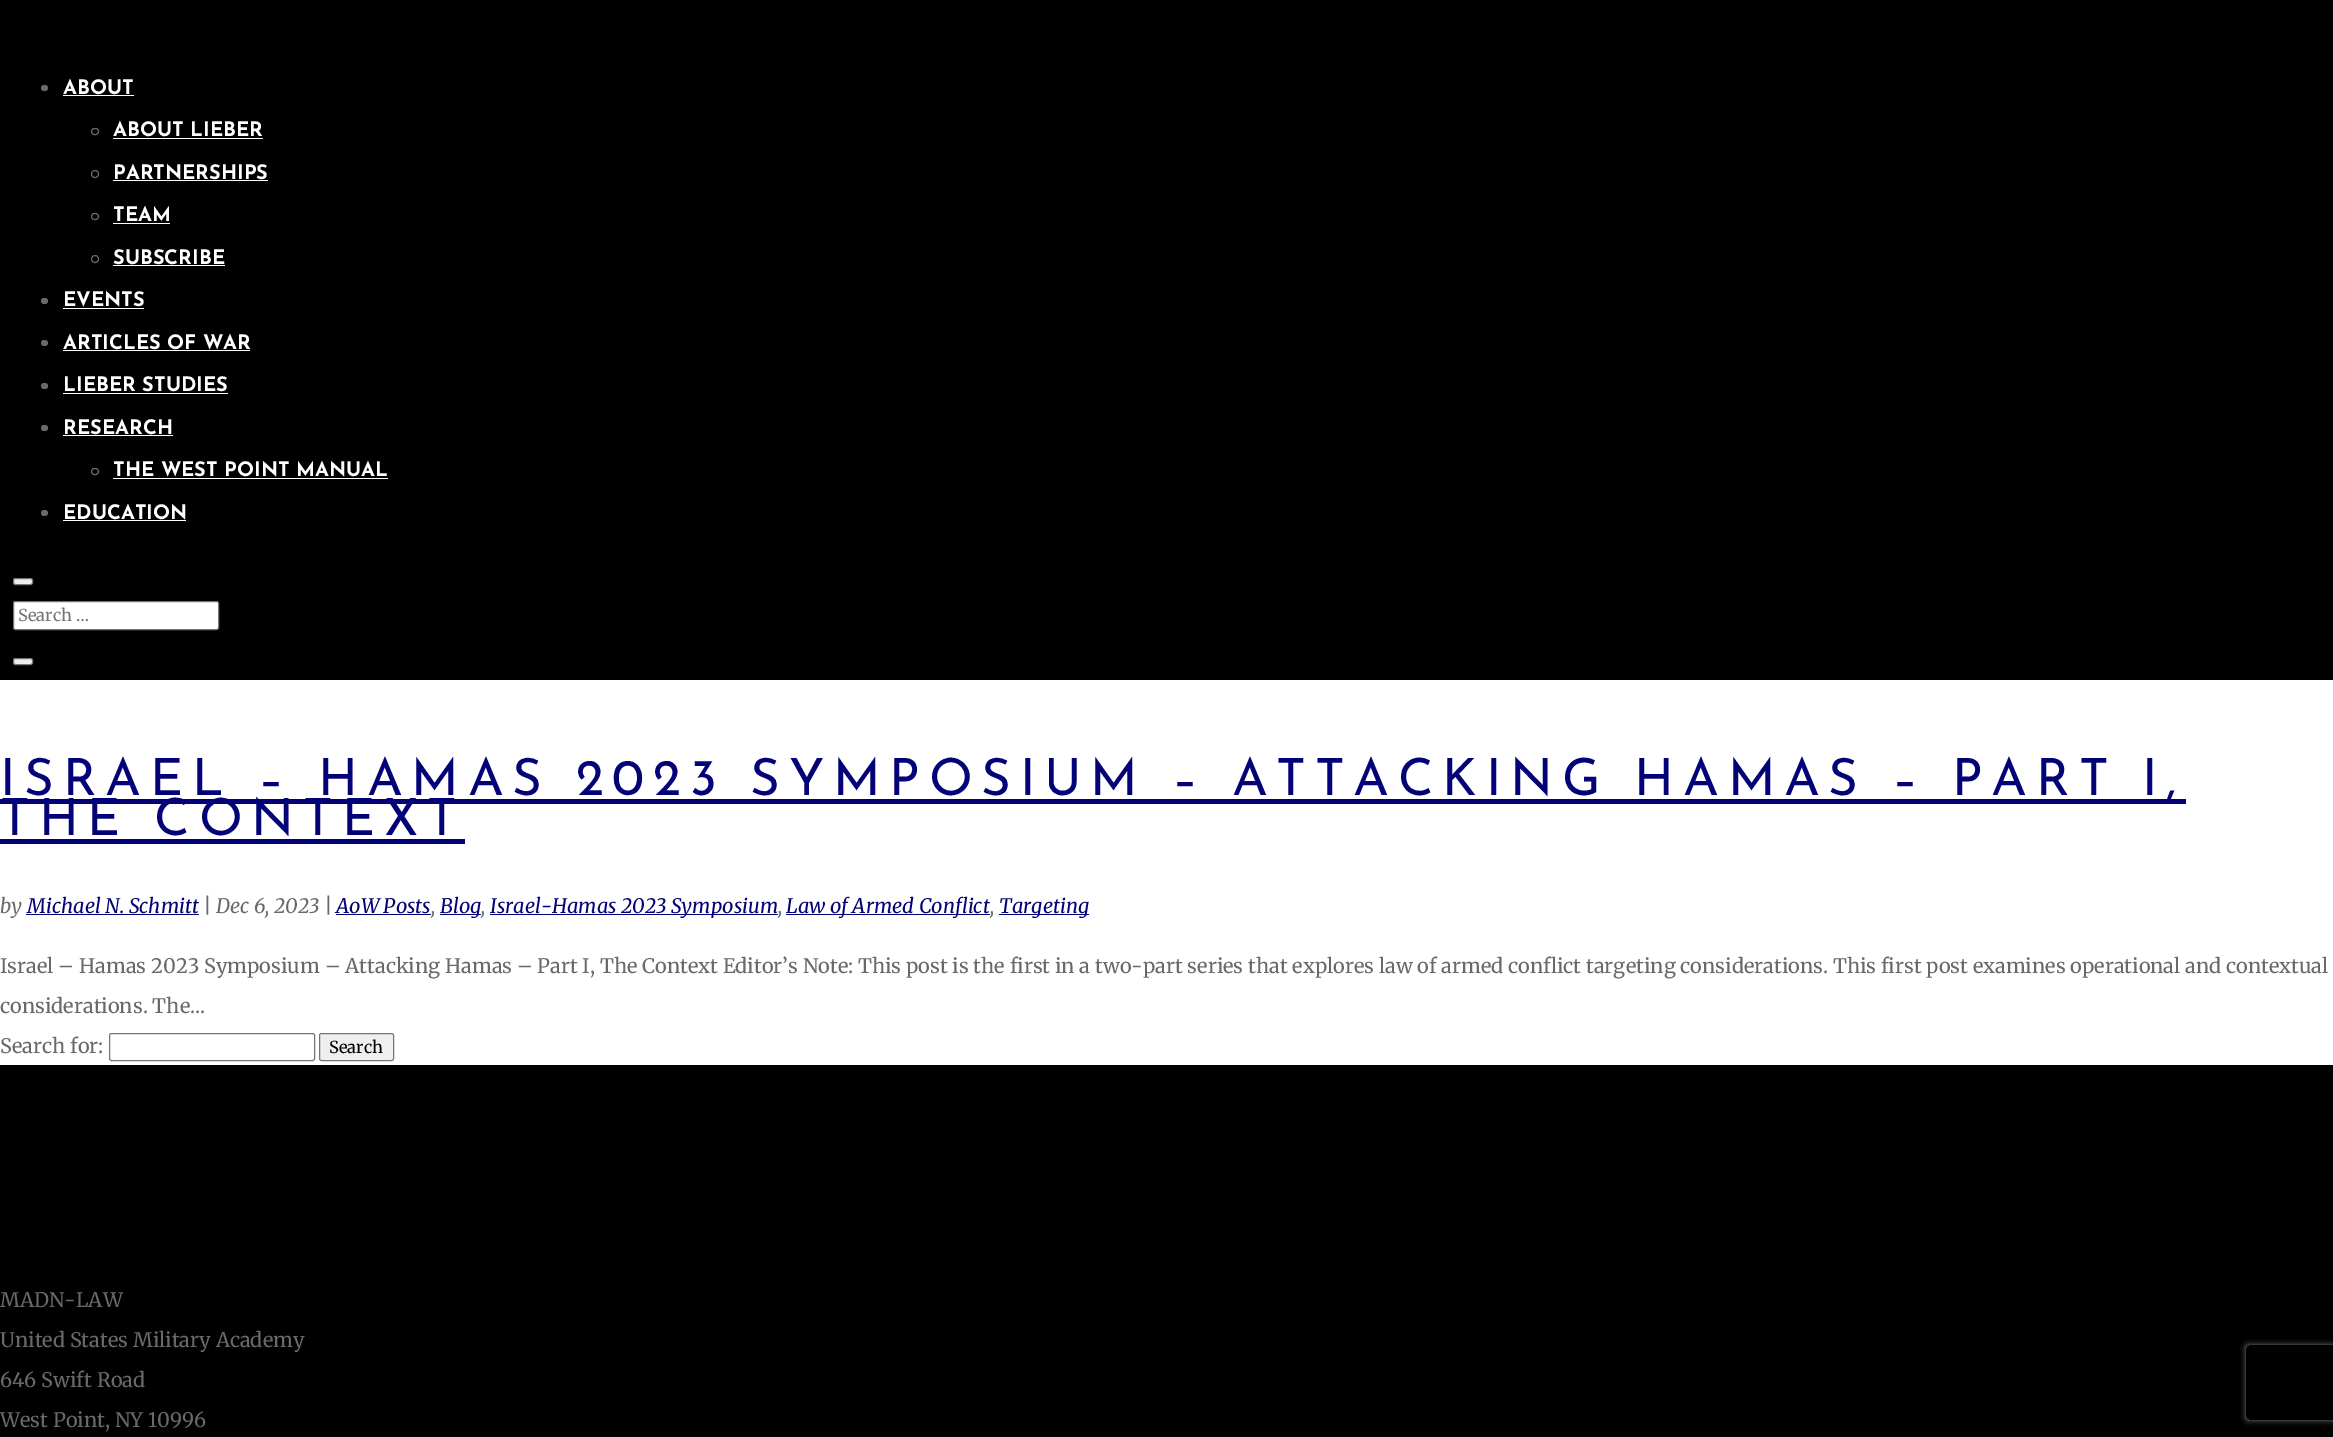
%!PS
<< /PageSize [2333 1437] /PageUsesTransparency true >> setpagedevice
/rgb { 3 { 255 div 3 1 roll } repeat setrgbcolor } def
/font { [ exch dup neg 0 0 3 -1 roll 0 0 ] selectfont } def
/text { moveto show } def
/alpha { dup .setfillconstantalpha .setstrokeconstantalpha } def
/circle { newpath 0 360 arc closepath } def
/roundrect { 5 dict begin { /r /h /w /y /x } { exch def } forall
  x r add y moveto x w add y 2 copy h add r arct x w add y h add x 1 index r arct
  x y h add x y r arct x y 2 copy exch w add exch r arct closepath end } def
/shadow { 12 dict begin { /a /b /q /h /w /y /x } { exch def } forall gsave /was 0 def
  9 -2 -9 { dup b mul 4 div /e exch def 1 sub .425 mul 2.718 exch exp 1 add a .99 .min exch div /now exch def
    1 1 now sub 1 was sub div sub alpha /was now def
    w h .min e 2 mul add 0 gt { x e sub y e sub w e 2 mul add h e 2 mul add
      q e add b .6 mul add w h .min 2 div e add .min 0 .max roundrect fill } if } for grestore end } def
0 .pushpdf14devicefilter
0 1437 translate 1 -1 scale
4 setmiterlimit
255 255 255 rgb
0 0 2333 1437 rectfill
0 0 0 rgb
0 0 2333 680 rectfill
105 105 105 rgb
41 85 7 6 3 roundrect fill
255 255 255 rgb
63 95 71 1 rectfill
105 105 105 rgb
91.5 128.5 7 6 3 roundrect stroke
255 255 255 rgb
113 138 150 1 rectfill
105 105 105 rgb
95 174 3.5 circle stroke
255 255 255 rgb
113 180 155 1 rectfill
105 105 105 rgb
91.5 213.5 7 6 3 roundrect stroke
255 255 255 rgb
113 223 57 1 rectfill
105 105 105 rgb
95 259 3.5 circle stroke
255 255 255 rgb
113 265 112 1 rectfill
105 105 105 rgb
41 298 7 6 3 roundrect fill
255 255 255 rgb
63 308 81 1 rectfill
105 105 105 rgb
41 340 7 6 3 roundrect fill
255 255 255 rgb
63 350 187 1 rectfill
105 105 105 rgb
41 383 7 6 3 roundrect fill
255 255 255 rgb
63 393 165 1 rectfill
105 105 105 rgb
41 425 7 6 3 roundrect fill
255 255 255 rgb
63 435 110 1 rectfill
105 105 105 rgb
91.5 468.5 7 6 3 roundrect stroke
255 255 255 rgb
113 478 275 1 rectfill
105 105 105 rgb
41 510 7 6 3 roundrect fill
255 255 255 rgb
63 520 123 1 rectfill
239 239 239 rgb
13.5 578.5 19 6 2 roundrect gsave fill grestore
118 118 118 rgb
stroke
255 255 255 rgb
13.5 601.5 205 28 2 roundrect gsave fill grestore
118 118 118 rgb
stroke
239 239 239 rgb
13.5 658.5 19 6 2 roundrect gsave fill grestore
118 118 118 rgb
stroke
4 2 119 rgb
0 799 2186 5 rectfill
0 839 465 5 rectfill
26 914 173 1 rectfill
336 914 95 1 rectfill
440 914 41 1 rectfill
490 914 288 1 rectfill
786 914 204 1 rectfill
999 914 90 1 rectfill
118 118 118 rgb
109.5 1033.5 205 27 2 roundrect stroke
239 239 239 rgb
319.5 1033.5 74 27 2 roundrect gsave fill grestore
118 118 118 rgb
stroke
0 0 0 rgb
0 1065 2333 372 rectfill
gsave
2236 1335 moveto 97 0 rlineto 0 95 rlineto -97 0 rlineto closepath 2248.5 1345 moveto 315 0 rlineto 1.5 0 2.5 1 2.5 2.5 rcurveto 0 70 rlineto 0 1.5 -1 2.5 -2.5 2.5 rcurveto -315 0 rlineto -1.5 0 -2.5 -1 -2.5 -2.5 rcurveto 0 -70 rlineto 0 -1.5 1 -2.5 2.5 -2.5 rcurveto closepath eoclip newpath
128 128 128 rgb
2246 1345 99 75 2.5 3 1 shadow
grestore
/JosefinSans-Bold 20 font
255 255 255 rgb
(ABOUT) 63 94 text
(ABOUT LIEBER) 113 136 text
(PARTNERSHIPS) 113 179 text
(TEAM) 113 221 text
(SUBSCRIBE) 113 264 text
(EVENTS) 63 306 text
(ARTICLES OF WAR) 63 349 text
(LIEBER STUDIES) 63 391 text
(RESEARCH) 63 434 text
(THE WEST POINT MANUAL) 113 476 text
(EDUCATION) 63 519 text
/Merriweather-Regular 16.5 font
117 117 117 rgb
(Search …) 18 621 text
/JosefinSans-Regular 51.25 font
4 2 119 rgb
0 795 moveto 8.75 0 (ISRAEL – HAMAS 2023 SYMPOSIUM – ATTACKING HAMAS – PART I,) ashow
0 835 moveto 8.75 0 (THE CONTEXT) ashow
/Merriweather-Italic 20 font
105 105 105 rgb
(by) 0 913 text
4 2 119 rgb
(Michael N. Schmitt) 27 913 text
105 105 105 rgb
(| Dec 6, 2023 |) 203 913 text
4 2 119 rgb
(AoW Posts) 336 913 text
105 105 105 rgb
(,) 431 913 text
4 2 119 rgb
(Blog) 440 913 text
105 105 105 rgb
(,) 481 913 text
4 2 119 rgb
(Israel-Hamas 2023 Symposium) 490 913 text
105 105 105 rgb
(,) 778 913 text
4 2 119 rgb
(Law of Armed Conflict) 786 913 text
105 105 105 rgb
(,) 990 913 text
4 2 119 rgb
(Targeting) 999 913 text
/Merriweather-Regular 20 font
105 105 105 rgb
(Israel – Hamas 2023 Symposium – Attacking Hamas – Part I, The Context Editor’s Note: This post is the first in a two-part series that explores law of armed conflict targeting considerations. This first post examines operational and contextual) 0 973 text
(considerations. The...) 0 1013 text
(Search for:) 0 1053 text
/Merriweather-Regular 16.5 font
0 0 0 rgb
(Search) 329 1053 text
/Merriweather-Regular 20 font
105 105 105 rgb
(MADN-LAW) 0 1307 text
(United States Military Academy) 0 1347 text
(646 Swift Road) 0 1387 text
(West Point, NY 10996) 0 1427 text
.poppdf14devicefilter showpage
